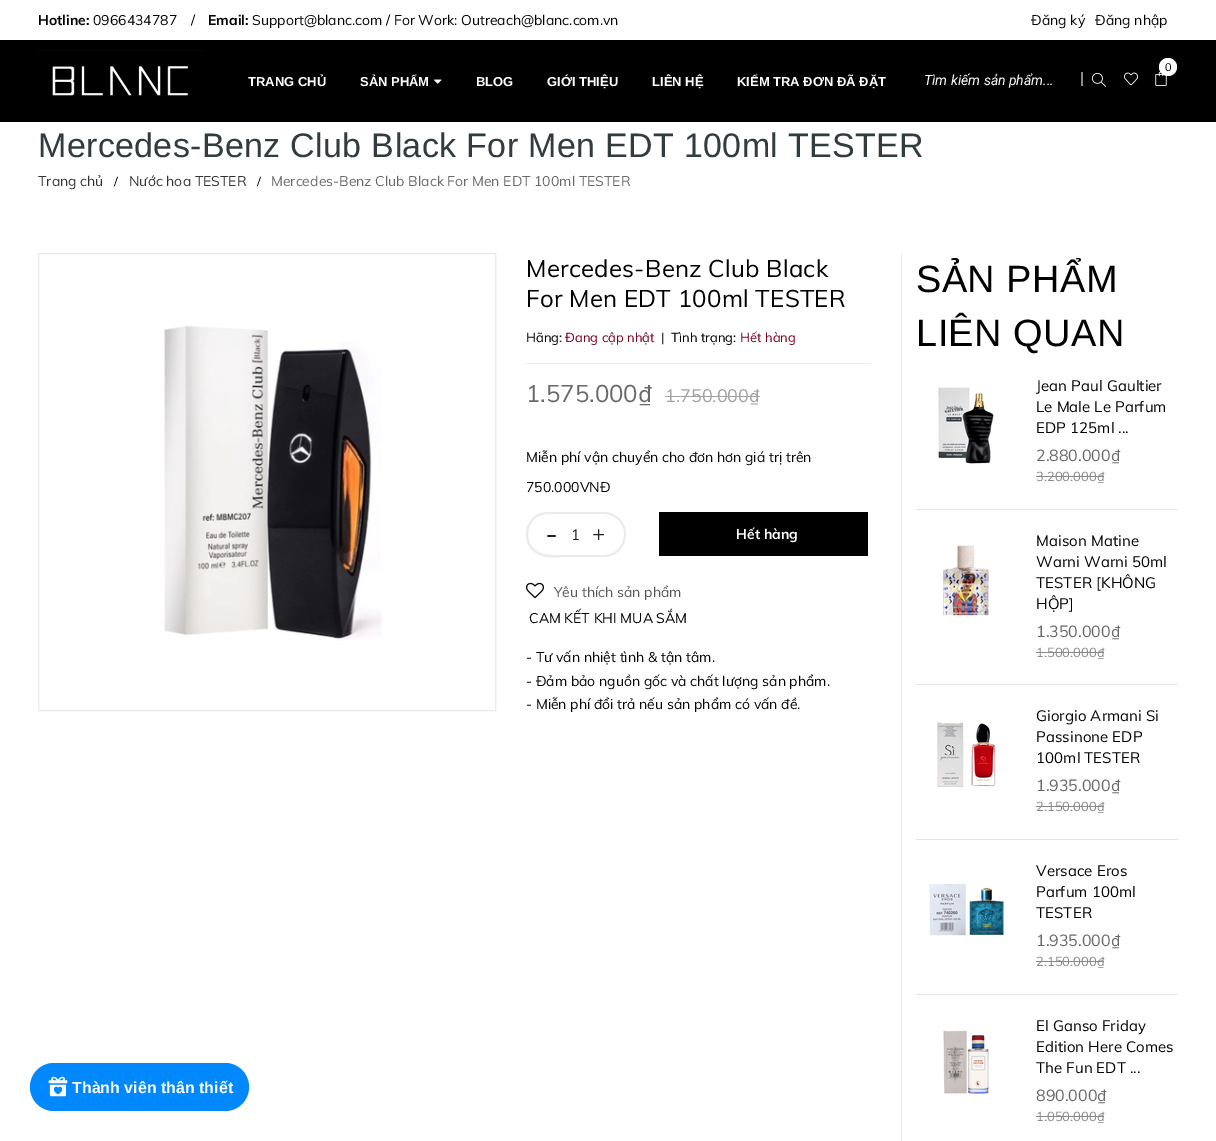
%!PS
<< /PageSize [1216 1141] >> setpagedevice
/rgb { 3 { 255 div 3 1 roll } repeat setrgbcolor } def
/font { [ exch dup neg 0 0 3 -1 roll 0 0 ] selectfont } def
/text { moveto show } def
/circle { newpath 0 360 arc closepath } def
/roundrect { 5 dict begin { /r /h /w /y /x } { exch def } forall
  x r add y moveto x w add y 2 copy h add r arct x w add y h add x 1 index r arct
  x y h add x y r arct x y 2 copy exch w add exch r arct closepath end } def
/picture { 5 dict begin { /h /w /y /x /name } { exch def } forall
  gsave x y translate w h scale
  w h 8 [w 0 0 h 0 0] name (r) file false 3 colorimage grestore end } def
0 1141 translate 1 -1 scale
4 setmiterlimit
255 255 255 rgb
0 0 1216 1141 rectfill
0 0 0 rgb
0 40 1216 82 rectfill
(img_01.rgb) 38 50 165 46 picture
(img_02.rgb) 434 79 8 5 picture
(img_03.rgb) 1155 71 12 15 picture
255 255 255 rgb
1168 67 9 circle fill
137 137 137 rgb
1081 72 2 14 rectfill
(img_04.rgb) 1092 72 14 15 picture
(img_05.rgb) 1124 72 14 14 picture
0 136 255 rgb
30 1063 219 48 24 roundrect fill
(img_06.rgb) 48 1076 20 21 picture
235 235 235 rgb
38.5 253.5 457 457 rectstroke
(img_07.rgb) 164 325 218 316 picture
526 363 345 1 rectfill
161 161 161 rgb
665 396 95 1 rectfill
235 235 235 rgb
548 512 moveto 18 0 rlineto 0 45 rlineto -8 0 -18 2 -26 -2 rcurveto -23 -9 -16 -43 8 -43 rcurveto closepath 548 514 moveto 18 0 rlineto 0 41 rlineto -8 0 -18 1 -25 -2 rcurveto -21 -8 -15 -39 7 -39 rcurveto closepath eofill
566 512 20 2 rectfill
566 555 20 2 rectfill
586 512 moveto 18 0 rlineto 12 0 22 10 22 22 rcurveto 0 13 -10 23 -22 23 rcurveto -18 0 rlineto closepath 586 514 moveto 18 0 rlineto 11 0 20 9 20 20 rcurveto 0 12 -9 21 -20 21 rcurveto -18 0 rlineto closepath eofill
0 0 0 rgb
659 512 209 44 rectfill
(img_08.rgb) 526 582 18 17 picture
235 235 235 rgb
901 253 1 888 rectfill
229 229 229 rgb
916 509 262 1 rectfill
(img_09.rgb) 938 387 56 77 picture
137 137 137 rgb
1036 476 68 1 rectfill
229 229 229 rgb
916 684 262 1 rectfill
(img_10.rgb) 942 545 47 73 picture
137 137 137 rgb
1036 652 68 1 rectfill
229 229 229 rgb
916 839 262 1 rectfill
(img_11.rgb) 937 722 59 65 picture
137 137 137 rgb
1036 806 68 1 rectfill
229 229 229 rgb
916 994 262 1 rectfill
(img_12.rgb) 929 883 75 53 picture
137 137 137 rgb
1036 961 68 1 rectfill
(img_13.rgb) 943 1030 46 64 picture
1036 1116 68 1 rectfill
/Muli-Bold 14 font
0 0 0 rgb
(Hotline:) 38 25 text
/Muli-Regular 14 font
(0966434787) 93 25 text
(/) 191 25 text
/Muli-Bold 14 font
(Email:) 208 25 text
/Muli-Regular 14 font
(Support@blanc.com / For Work: Outreach@blanc.com.vn) 252 25 text
(Đăng ký) 1031 25 text
(Đăng nhập) 1095 25 text
/LiberationSans-Bold 13 font
255 255 255 rgb
(TRANG CHỦ) 248 86 text
(SẢN PHẨM) 360 86 text
(BLOG) 476 86 text
(GIỚI THIỆU) 547 86 text
(LIÊN HỆ) 652 86 text
(KIỂM TRA ĐƠN ĐÃ ĐẶT) 737 86 text
/Muli-Regular 11 font
0 0 0 rgb
(0) 1165 71 text
/Roboto-Italic 14 font
255 255 255 rgb
(Tìm kiếm sản phẩm...) 924 85 text
/LiberationSans-Regular 34 font
50 60 63 rgb
38 157 moveto 0.35 0 (Mercedes-Benz Club Black For Men EDT 100ml TESTER) ashow
/Muli-Regular 14 font
51 51 51 rgb
(Trang chủ) 38 186 text
/LiberationSerif-Bold 14 font
0 0 0 rgb
(/) 114 186 text
/Muli-Regular 14 font
51 51 51 rgb
(Nước hoa TESTER) 129 186 text
/LiberationSerif-Bold 14 font
0 0 0 rgb
(/) 257 186 text
/Muli-Regular 14 font
105 105 105 rgb
(Mercedes-Benz Club Black For Men EDT 100ml TESTER) 271 186 text
/LiberationSans-Bold 16 font
255 255 255 rgb
(Thành viên thân thiết) 72 1093 text
/Muli-Regular 24 font
0 0 0 rgb
526 277 moveto 0.25 0 (Mercedes-Benz Club Black) ashow
526 307 moveto 0.25 0 (For Men EDT 100ml TESTER) ashow
/Muli-Regular 13 font
(Hãng:) 526 342 text
128 0 32 rgb
(Đang cập nhật) 565 342 text
0 0 0 rgb
(|  Tình trạng:) 661 342 text
128 0 32 rgb
(Hết hàng) 740 342 text
/Muli-Regular 24 font
105 105 105 rgb
(1.575.000₫) 526 402 text
/Muli-Regular 18 font
161 161 161 rgb
(1.750.000₫) 665 402 text
/Muli-Regular 14 font
0 0 0 rgb
(Miễn phí vận chuyển cho đơn hơn giá trị trên) 526 462 text
(750.000VNĐ) 526 492 text
/Muli-Regular 30 font
34 34 34 rgb
(-) 545 544 text
/Muli-Regular 15 font
(1) 571 540 text
/Muli-Regular 22 font
(+) 592 541 text
/Muli-Bold 14 font
255 255 255 rgb
(Hết hàng) 736 539 text
/Muli-Regular 14 font
87 84 84 rgb
(Yêu thích sản phẩm) 554 597 text
0 0 0 rgb
(CAM KẾT KHI MUA SẮM) 529 623 text
(- Tư vấn nhiệt tình & tận tâm.) 526 662 text
(- Đảm bảo nguồn gốc và chất lượng sản phẩm.) 526 686 text
(- Miễn phí đổi trả nếu sản phẩm có vấn đề.) 526 709 text
/LiberationSans-Regular 38 font
916 292 moveto 0.4 0 (SẢN PHẨM) ashow
916 346 moveto 0.4 0 (LIÊN QUAN) ashow
/Muli-Regular 15 font
1036 391 moveto 0.1 0 (Jean Paul Gaultier) ashow
1036 412 moveto 0.1 0 (Le Male Le Parfum) ashow
1036 433 moveto 0.1 0 (EDP 125ml ...) ashow
/Muli-Regular 16 font
105 105 105 rgb
(2.880.000₫) 1036 461 text
/Muli-Regular 13 font
137 137 137 rgb
(3.200.000₫) 1036 481 text
/Muli-Regular 15 font
0 0 0 rgb
1036 546 moveto 0.1 0 (Maison Matine) ashow
1036 567 moveto 0.1 0 (Warni Warni 50ml) ashow
1036 588 moveto 0.1 0 (TESTER [KHÔNG) ashow
1036 609 moveto 0.1 0 (HỘP]) ashow
/Muli-Regular 16 font
105 105 105 rgb
(1.350.000₫) 1036 637 text
/Muli-Regular 13 font
137 137 137 rgb
(1.500.000₫) 1036 657 text
/Muli-Regular 15 font
0 0 0 rgb
1036 721 moveto 0.1 0 (Giorgio Armani Si) ashow
1036 742 moveto 0.1 0 (Passinone EDP) ashow
1036 763 moveto 0.1 0 (100ml TESTER) ashow
/Muli-Regular 16 font
105 105 105 rgb
(1.935.000₫) 1036 791 text
/Muli-Regular 13 font
137 137 137 rgb
(2.150.000₫) 1036 811 text
/Muli-Regular 15 font
0 0 0 rgb
1036 876 moveto 0.1 0 (Versace Eros) ashow
1036 897 moveto 0.1 0 (Parfum 100ml) ashow
1036 918 moveto 0.1 0 (TESTER) ashow
/Muli-Regular 16 font
105 105 105 rgb
(1.935.000₫) 1036 946 text
/Muli-Regular 13 font
137 137 137 rgb
(2.150.000₫) 1036 966 text
/Muli-Regular 15 font
0 0 0 rgb
1036 1031 moveto 0.1 0 (El Ganso Friday) ashow
1036 1052 moveto 0.1 0 (Edition Here Comes) ashow
1036 1073 moveto 0.1 0 (The Fun EDT ...) ashow
/Muli-Regular 16 font
105 105 105 rgb
(890.000₫) 1036 1101 text
/Muli-Regular 13 font
137 137 137 rgb
(1.050.000₫) 1036 1121 text
showpage
